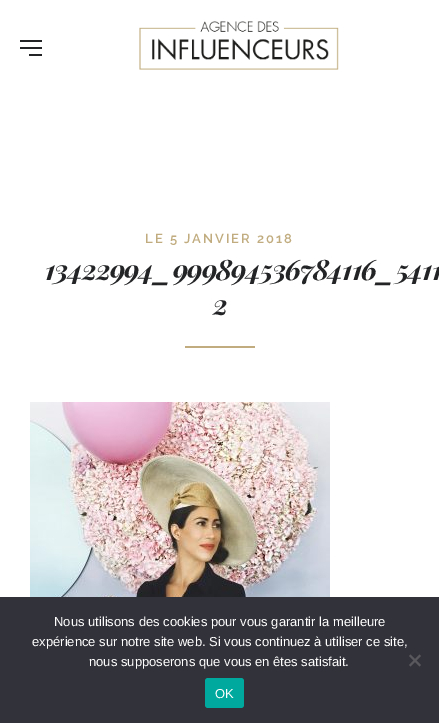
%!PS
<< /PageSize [439 723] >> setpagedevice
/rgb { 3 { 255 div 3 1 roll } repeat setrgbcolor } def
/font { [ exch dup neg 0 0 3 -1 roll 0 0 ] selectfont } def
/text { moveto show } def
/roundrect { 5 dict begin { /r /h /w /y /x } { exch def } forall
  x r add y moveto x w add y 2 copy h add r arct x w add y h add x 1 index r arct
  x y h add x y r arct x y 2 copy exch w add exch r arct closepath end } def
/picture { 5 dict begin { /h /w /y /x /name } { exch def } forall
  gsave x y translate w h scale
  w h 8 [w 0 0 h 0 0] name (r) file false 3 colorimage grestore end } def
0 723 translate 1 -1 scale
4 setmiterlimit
255 255 255 rgb
0 0 439 723 rectfill
35 36 38 rgb
20 40 22 2 rectfill
20 47 22 2 rectfill
29 54 13 2 rectfill
(img_01.rgb) 139 21 200 49 picture
192 172 126 rgb
185 346 70 2 rectfill
(img_02.rgb) 30 402 300 195 picture
50 50 58 rgb
0 597 439 126 rectfill
89 89 93 rgb
419.5 654.5 moveto 1.5 1.5 rlineto -10.5 10.5 rlineto -1.5 -1.5 rlineto closepath fill
409 656 moveto 1.5 -1.5 rlineto 10.5 10.5 rlineto -1.5 1.5 rlineto closepath fill
0 169 157 rgb
205 678 39 30 3 roundrect fill
/Raleway-Thin 13 font
192 172 126 rgb
145 243 moveto 2 0 (LE 5 JANVIER 2018) ashow
/PlayfairDisplay-BoldItalic 28 font
35 36 38 rgb
45 280 moveto -1 0 (13422994_999894536784116_5411) ashow
213 315 moveto -1 0 (2) ashow
/LiberationSans-Regular 13 font
255 255 255 rgb
(Nous utilisons des cookies pour vous garantir la meilleure) 54 626 text
(expérience sur notre site web. Si vous continuez à utiliser ce site,) 32 646 text
(nous supposerons que vous en êtes satisfait.) 89 666 text
(OK) 215 698 text
showpage
